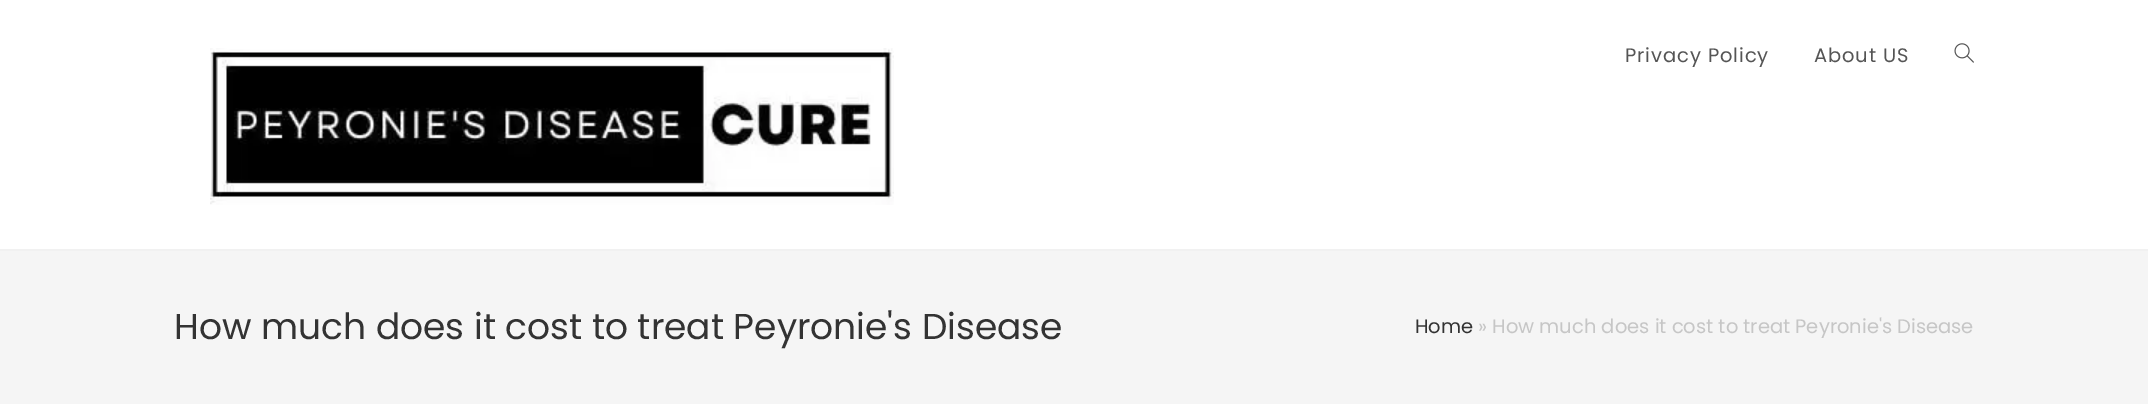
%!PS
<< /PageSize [2148 408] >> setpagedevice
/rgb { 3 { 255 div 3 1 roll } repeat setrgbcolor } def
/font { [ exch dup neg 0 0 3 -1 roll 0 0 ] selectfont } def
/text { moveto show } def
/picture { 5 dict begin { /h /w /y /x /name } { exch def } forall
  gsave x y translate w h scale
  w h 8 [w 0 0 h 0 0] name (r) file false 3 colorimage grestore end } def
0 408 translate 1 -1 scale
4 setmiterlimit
255 255 255 rgb
0 0 2148 408 rectfill
241 241 241 rgb
0 249 2148 2 rectfill
(img_01.rgb) 210 48 684 157 picture
(img_02.rgb) 1954 43 20 20 picture
245 245 245 rgb
0 251 2148 153 rectfill
/Poppins-Regular 19.5 font
85 85 85 rgb
1625 62 moveto 0.9 0 (Privacy Policy) ashow
1814 62 moveto 0.9 0 (About US) ashow
/Poppins-Regular 36 font
51 51 51 rgb
(How much does it cost to treat Peyronie's Disease) 174 339 text
/Poppins-Regular 19.5 font
(Home) 1415 333 text
198 198 198 rgb
(» How much does it cost to treat Peyronie's Disease) 1478 333 text
showpage
